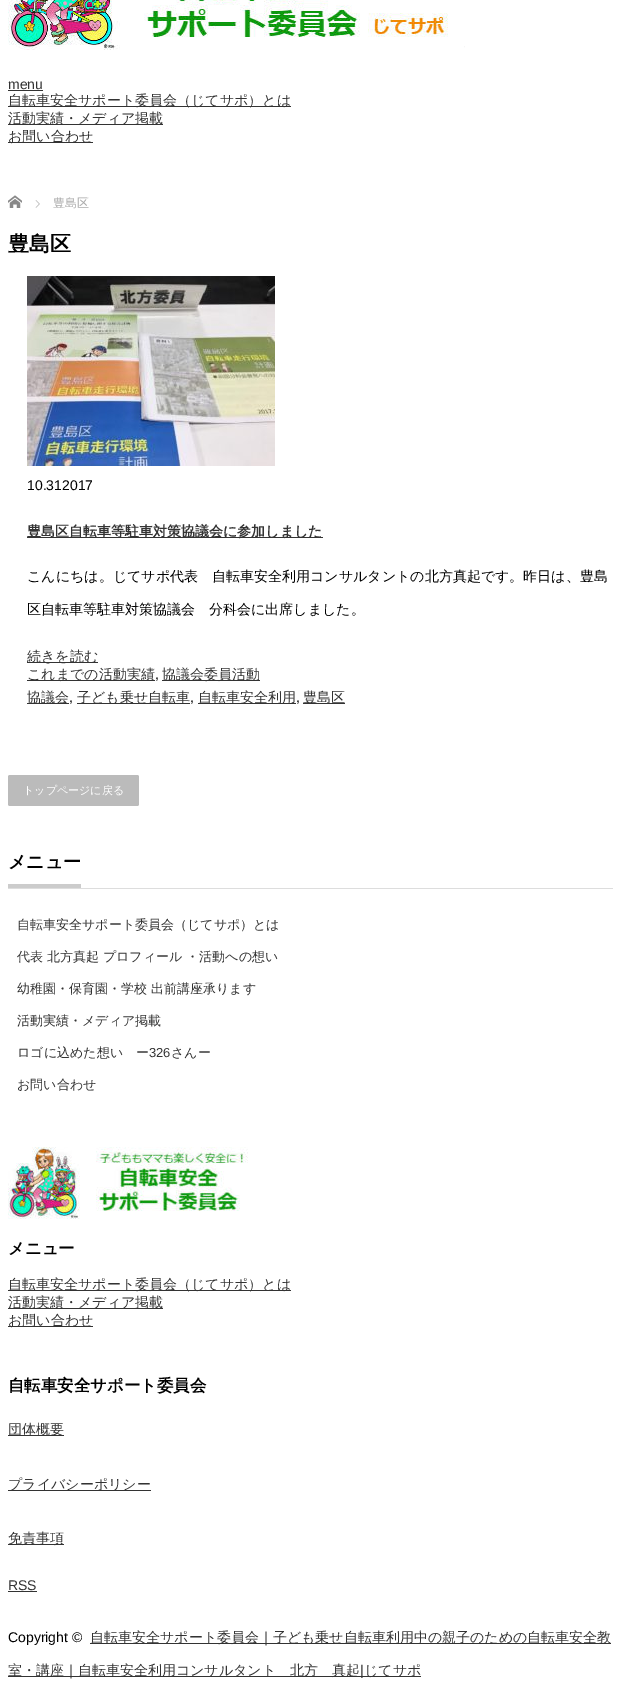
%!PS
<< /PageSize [621 1683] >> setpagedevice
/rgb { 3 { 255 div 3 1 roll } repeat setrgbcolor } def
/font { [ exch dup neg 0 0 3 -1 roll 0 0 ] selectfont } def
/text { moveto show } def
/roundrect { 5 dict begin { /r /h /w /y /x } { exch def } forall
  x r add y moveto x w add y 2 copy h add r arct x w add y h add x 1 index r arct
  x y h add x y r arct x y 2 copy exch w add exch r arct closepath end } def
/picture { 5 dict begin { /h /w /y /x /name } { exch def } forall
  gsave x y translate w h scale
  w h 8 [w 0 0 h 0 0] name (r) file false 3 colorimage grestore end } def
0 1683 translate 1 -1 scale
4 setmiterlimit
255 255 255 rgb
0 0 621 1683 rectfill
(img_01.rgb) 8 0 457 50 picture
51 51 51 rgb
8 90 35 1 rectfill
8 106 283 1 rectfill
8 124 155 1 rectfill
8 142 85 1 rectfill
(img_02.rgb) 8 195 14 13 picture
(img_03.rgb) 35 200 5 8 picture
(img_04.rgb) 27 276 248 190 picture
27 537 296 1 rectfill
27 662 71 1 rectfill
27 680 128 1 rectfill
162 680 98 1 rectfill
27 703 42 1 rectfill
77 703 113 1 rectfill
198 703 98 1 rectfill
303 703 42 1 rectfill
187 187 187 rgb
8 775 131 31 2 roundrect fill
221 221 221 rgb
8 888 605 1 rectfill
204 204 204 rgb
8 884 73 4 rectfill
(img_05.rgb) 8 1147 240 72 picture
51 51 51 rgb
8 1290 283 1 rectfill
8 1308 155 1 rectfill
8 1326 85 1 rectfill
8 1435 56 1 rectfill
8 1490 143 1 rectfill
8 1544 56 1 rectfill
8 1591 29 1 rectfill
90 1643 521 1 rectfill
8 1676 413 1 rectfill
/LiberationSans-Regular 14 font
(menu) 8 89 text
/WenQuanYiZenHei-Medium 14 font
(自転車安全サポート委員会（じてサポ）とは) 8 105 text
(活動実績・メディア掲載) 8 123 text
(お問い合わせ) 8 141 text
/WenQuanYiZenHei-Medium 12 font
170 170 170 rgb
(豊島区) 53 207 text
/WenQuanYiZenHei-Bold 21 font
0 0 0 rgb
(豊島区) 8 251 text
/LiberationSans-Regular 14 font
(10.312017) 27 490 text
/WenQuanYiZenHei-Bold 14 font
51 51 51 rgb
(豊島区自転車等駐車対策協議会に参加しました) 27 536 text
/WenQuanYiZenHei-Medium 14 font
0 0 0 rgb
(こんにちは。じてサポ代表　自転車安全利用コンサルタントの北方真起です。昨日は、豊島) 27 581 text
(区自転車等駐車対策協議会　分科会に出席しました。) 27 614 text
51 51 51 rgb
(続きを読む) 27 661 text
(これまでの活動実績) 27 679 text
/LiberationSans-Regular 14 font
0 0 0 rgb
(,) 155 679 text
/WenQuanYiZenHei-Medium 14 font
51 51 51 rgb
(協議会委員活動) 162 679 text
(協議会) 27 702 text
/LiberationSans-Regular 14 font
0 0 0 rgb
(,) 69 702 text
/WenQuanYiZenHei-Medium 14 font
51 51 51 rgb
(子ども乗せ自転車) 77 702 text
/LiberationSans-Regular 14 font
0 0 0 rgb
(,) 190 702 text
/WenQuanYiZenHei-Medium 14 font
51 51 51 rgb
(自転車安全利用) 198 702 text
/LiberationSans-Regular 14 font
0 0 0 rgb
(,) 296 702 text
/WenQuanYiZenHei-Medium 14 font
51 51 51 rgb
(豊島区) 303 702 text
/WenQuanYiZenHei-Medium 11 font
255 255 255 rgb
(トップページに戻る) 23 794 text
/WenQuanYiZenHei-Bold 18 font
0 0 0 rgb
(メニュー) 8 868 text
/WenQuanYiZenHei-Medium 13 font
51 51 51 rgb
(自転車安全サポート委員会（じてサポ）とは) 17 929 text
(代表 北方真起 プロフィール ・活動への想い) 17 961 text
(幼稚園・保育園・学校 出前講座承ります) 17 993 text
(活動実績・メディア掲載) 17 1025 text
(ロゴに込めた想い　ー) 17 1057 text
/LiberationSans-Regular 13 font
(326) 149 1057 text
/WenQuanYiZenHei-Medium 13 font
(さんー) 171 1057 text
(お問い合わせ) 17 1089 text
/WenQuanYiZenHei-Bold 16.4 font
0 0 0 rgb
(メニュー) 8 1254 text
/WenQuanYiZenHei-Medium 14 font
51 51 51 rgb
(自転車安全サポート委員会（じてサポ）とは) 8 1289 text
(活動実績・メディア掲載) 8 1307 text
(お問い合わせ) 8 1325 text
/WenQuanYiZenHei-Bold 16.4 font
0 0 0 rgb
(自転車安全サポート委員会) 8 1391 text
/WenQuanYiZenHei-Medium 14 font
51 51 51 rgb
(団体概要) 8 1434 text
(プライバシーポリシー) 8 1489 text
(免責事項) 8 1543 text
/LiberationSans-Regular 14 font
(RSS) 8 1590 text
0 0 0 rgb
(Copyright ©) 8 1642 text
/WenQuanYiZenHei-Medium 14 font
51 51 51 rgb
(自転車安全サポート委員会｜子ども乗せ自転車利用中の親子のための自転車安全教) 90 1642 text
(室・講座｜自転車安全利用コンサルタント　北方　真起) 8 1675 text
/LiberationSans-Regular 14 font
(|) 360 1675 text
/WenQuanYiZenHei-Medium 14 font
(じてサポ) 364 1675 text
showpage
